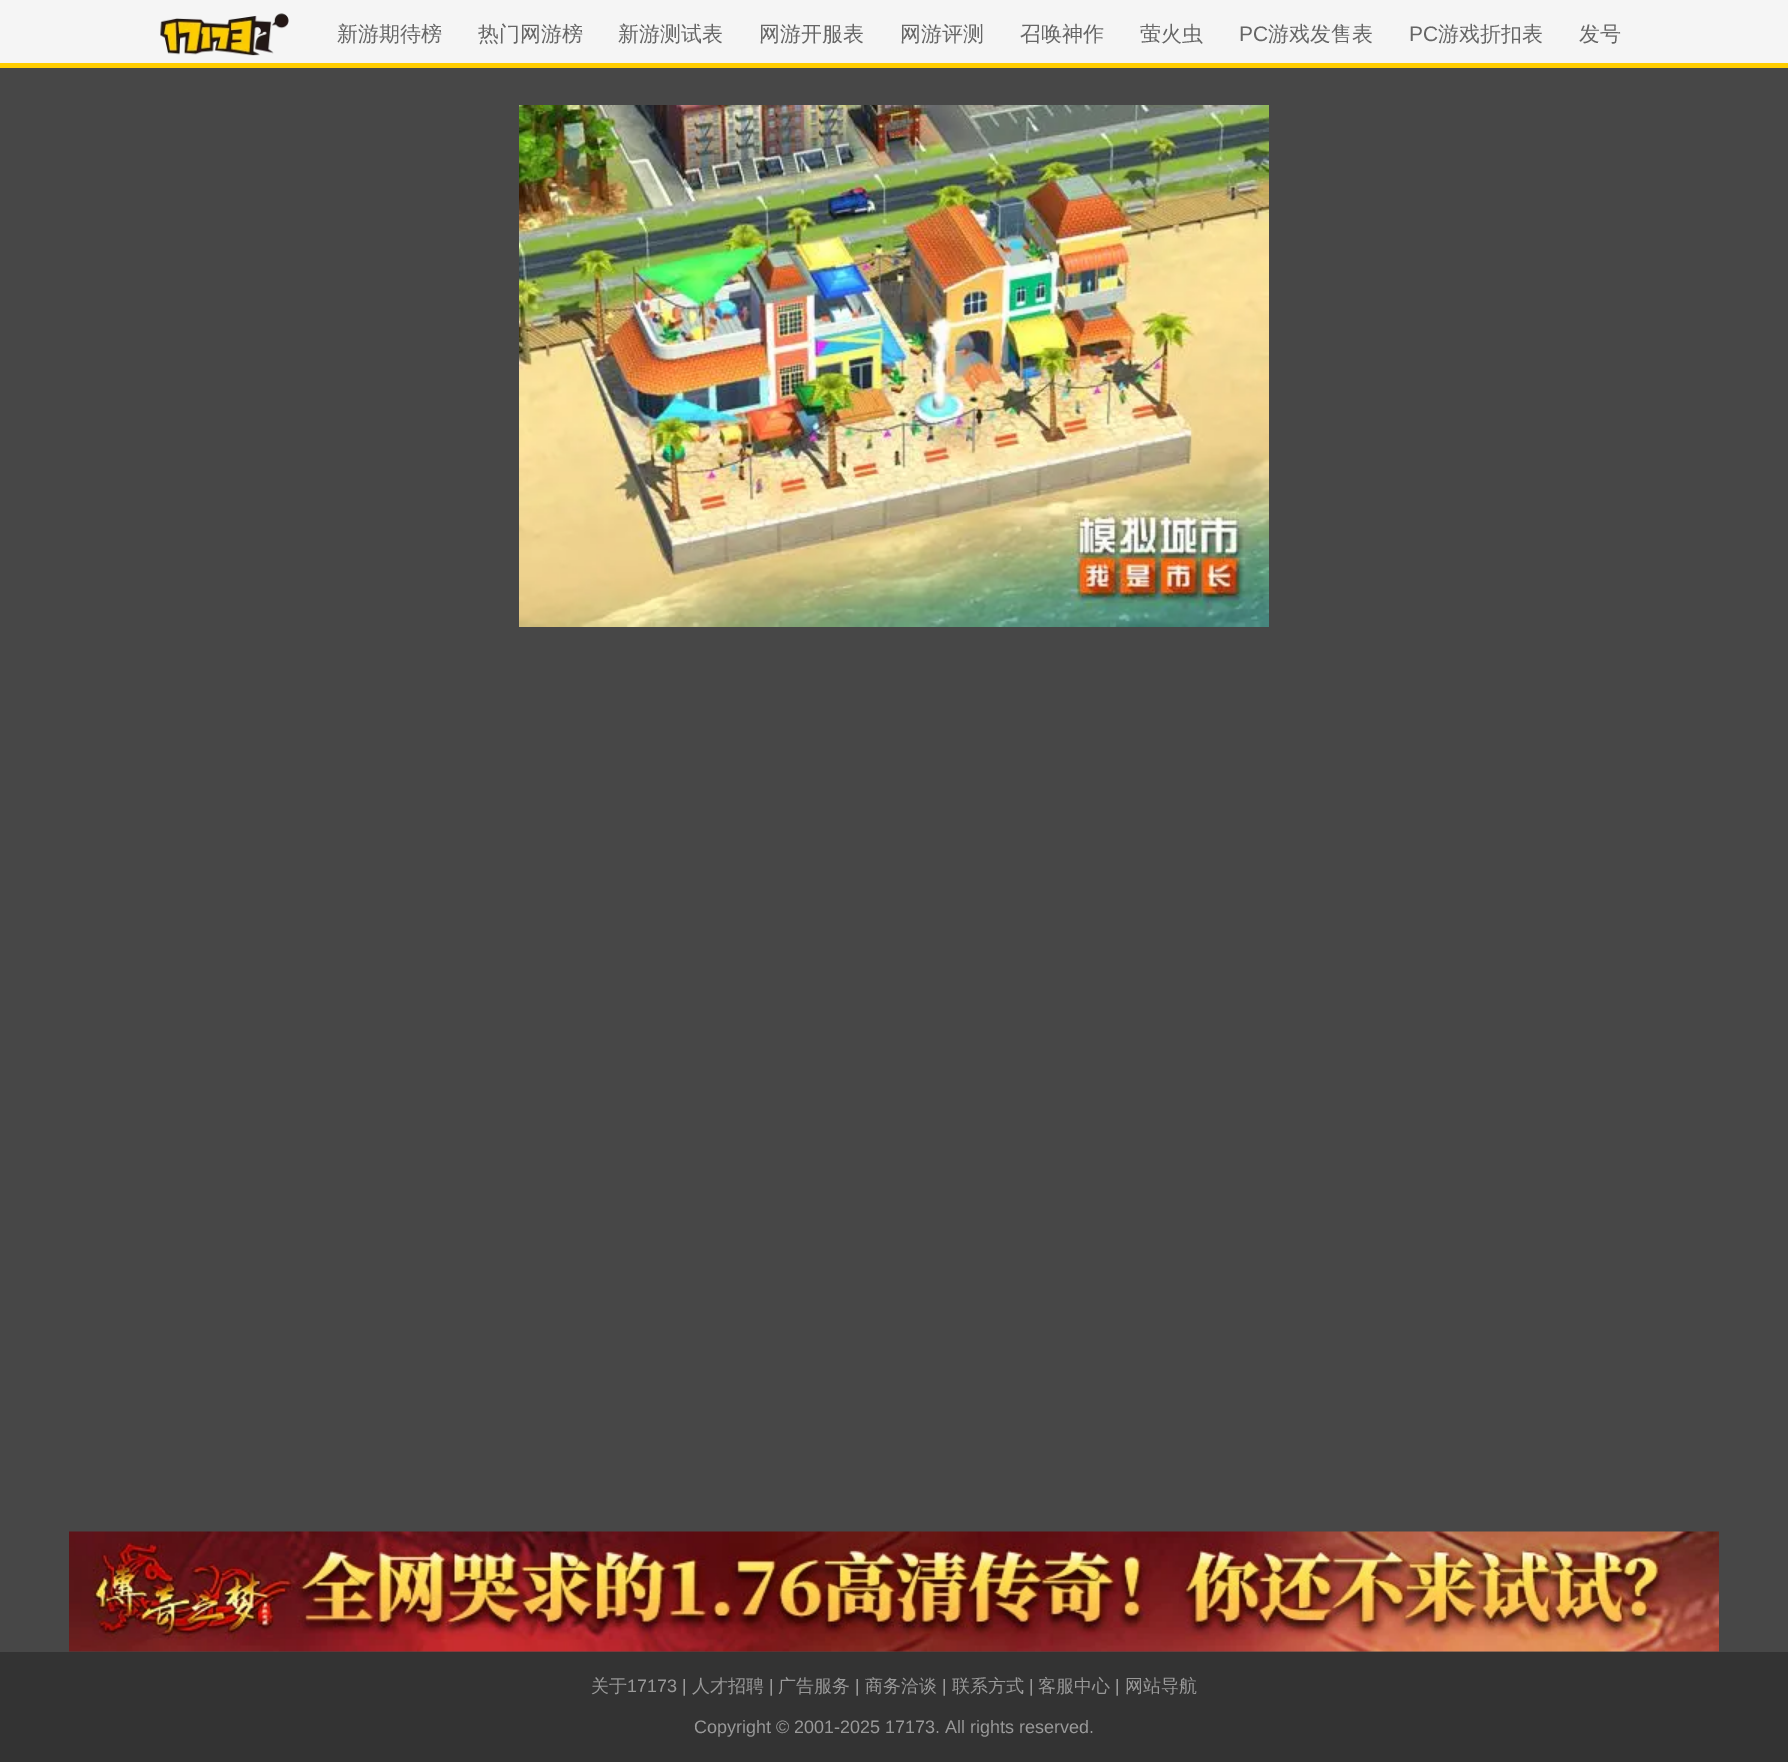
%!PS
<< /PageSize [1788 1762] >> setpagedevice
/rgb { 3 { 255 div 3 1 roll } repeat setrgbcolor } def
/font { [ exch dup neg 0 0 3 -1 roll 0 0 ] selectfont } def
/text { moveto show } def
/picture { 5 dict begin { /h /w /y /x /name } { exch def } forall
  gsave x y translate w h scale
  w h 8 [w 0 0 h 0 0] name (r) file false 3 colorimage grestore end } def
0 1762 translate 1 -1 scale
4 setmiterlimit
71 71 71 rgb
0 0 1788 1762 rectfill
245 245 245 rgb
0 0 1788 63 rectfill
255 205 0 rgb
0 63 1788 5 rectfill
(img_01.rgb) 160 13 129 43 picture
(img_02.rgb) 519 105 750 522 picture
(img_03.rgb) 69 1531 1650 121 picture
51 51 51 rgb
0 1652 1788 110 rectfill
/WenQuanYiZenHei-Medium 21 font
102 102 102 rgb
(新游期待榜) 337 41 text
(热门网游榜) 478 41 text
(新游测试表) 618 41 text
(网游开服表) 759 41 text
(网游评测) 900 41 text
(召唤神作) 1020 41 text
(萤火虫) 1140 41 text
/LiberationSans-Regular 21 font
(PC) 1239 41 text
/WenQuanYiZenHei-Medium 21 font
(游戏发售表) 1268 41 text
/LiberationSans-Regular 21 font
(PC) 1409 41 text
/WenQuanYiZenHei-Medium 21 font
(游戏折扣表) 1438 41 text
(发号) 1579 41 text
/WenQuanYiZenHei-Medium 18 font
153 153 153 rgb
(关于) 591 1692 text
/LiberationSans-Regular 18 font
(17173 |) 627 1692 text
/WenQuanYiZenHei-Medium 18 font
(人才招聘) 692 1692 text
/LiberationSans-Regular 18 font
(|) 769 1692 text
/WenQuanYiZenHei-Medium 18 font
(广告服务) 778 1692 text
/LiberationSans-Regular 18 font
(|) 855 1692 text
/WenQuanYiZenHei-Medium 18 font
(商务洽谈) 865 1692 text
/LiberationSans-Regular 18 font
(|) 942 1692 text
/WenQuanYiZenHei-Medium 18 font
(联系方式) 952 1692 text
/LiberationSans-Regular 18 font
(|) 1029 1692 text
/WenQuanYiZenHei-Medium 18 font
(客服中心) 1038 1692 text
/LiberationSans-Regular 18 font
(|) 1115 1692 text
/WenQuanYiZenHei-Medium 18 font
(网站导航) 1125 1692 text
/LiberationSans-Regular 18 font
(Copyright © 2001-2025 17173. All rights reserved.) 694 1733 text
showpage
